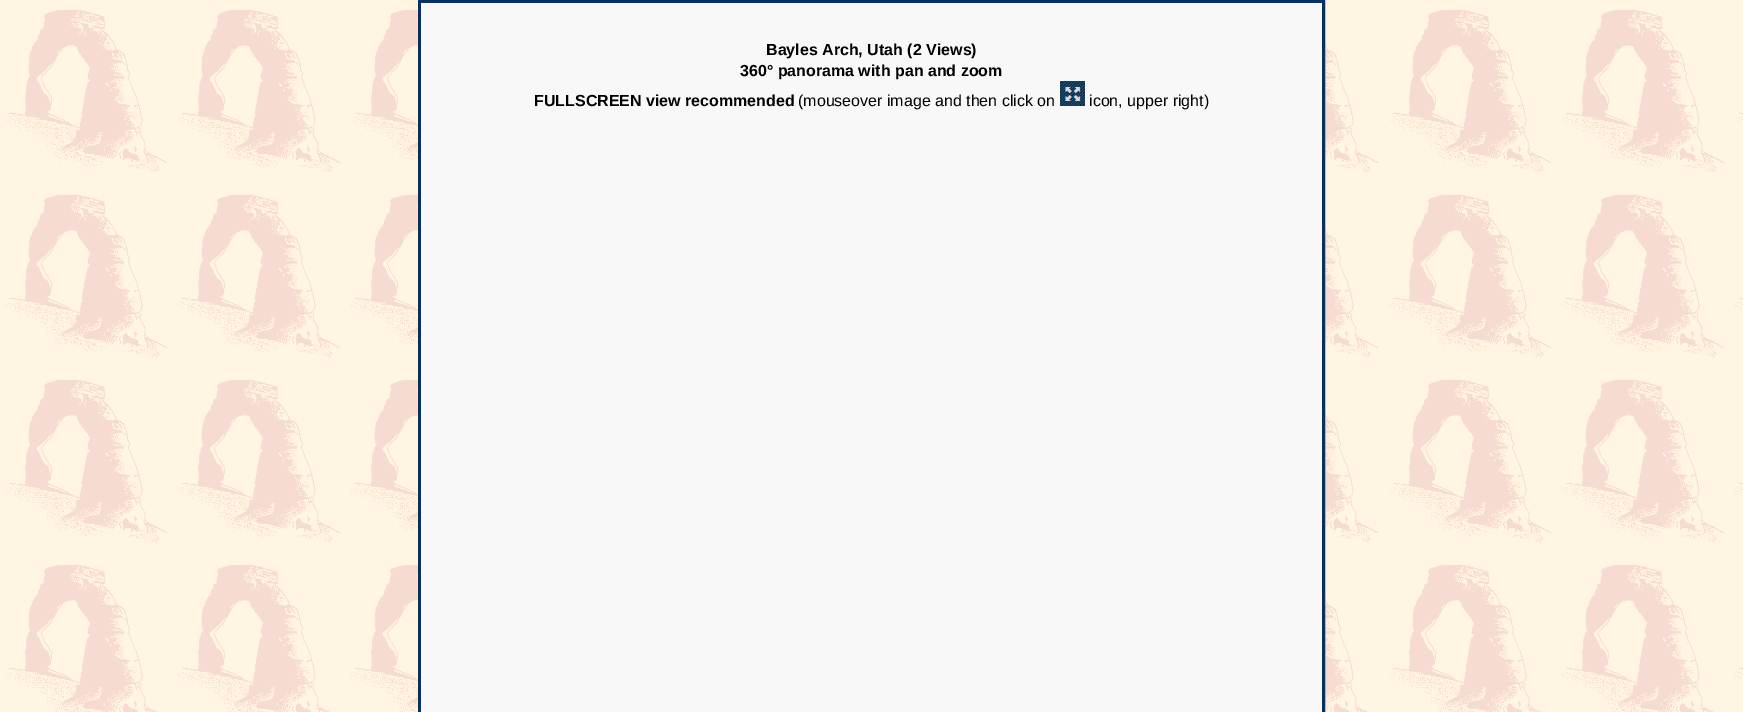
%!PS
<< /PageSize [1743 712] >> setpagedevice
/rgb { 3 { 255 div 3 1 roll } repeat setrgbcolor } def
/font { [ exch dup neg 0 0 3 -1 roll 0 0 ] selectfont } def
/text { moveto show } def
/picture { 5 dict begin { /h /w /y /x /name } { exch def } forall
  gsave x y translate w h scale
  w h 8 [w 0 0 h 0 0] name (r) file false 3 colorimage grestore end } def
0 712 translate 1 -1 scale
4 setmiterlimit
255 255 255 rgb
0 0 1743 712 rectfill
(img_01.rgb) 0 0 1743 712 picture
0 51 102 rgb
3 setlinewidth
419.5 1.5 904 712 rectstroke
248 248 248 rgb
421 3 901 709 rectfill
(img_02.rgb) 1060 81 25 25 picture
/LiberationSans-Bold 16 font
0 0 0 rgb
(Bayles Arch, Utah \(2 Views\)) 766 55 text
(360° panorama with pan and zoom) 740 76 text
(FULLSCREEN view recommended) 534 106 text
/LiberationSans-Regular 16 font
(\(mouseover image and then click on) 798 106 text
(icon, upper right\)) 1089 106 text
showpage
